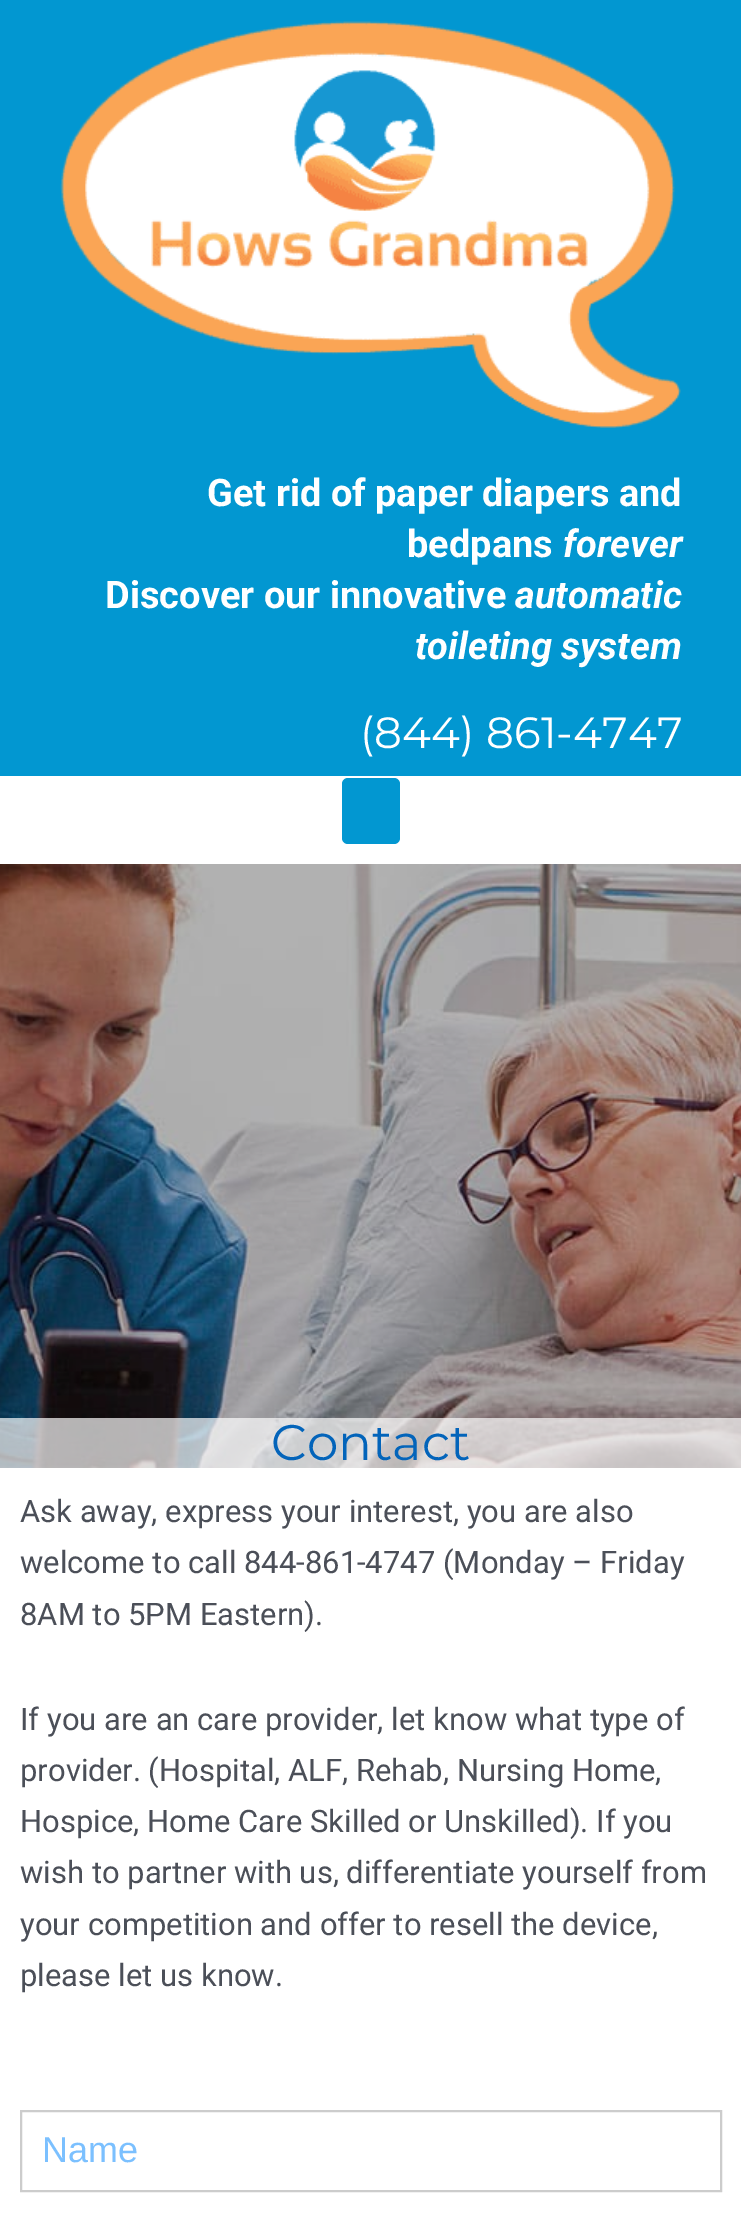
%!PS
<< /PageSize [741 2228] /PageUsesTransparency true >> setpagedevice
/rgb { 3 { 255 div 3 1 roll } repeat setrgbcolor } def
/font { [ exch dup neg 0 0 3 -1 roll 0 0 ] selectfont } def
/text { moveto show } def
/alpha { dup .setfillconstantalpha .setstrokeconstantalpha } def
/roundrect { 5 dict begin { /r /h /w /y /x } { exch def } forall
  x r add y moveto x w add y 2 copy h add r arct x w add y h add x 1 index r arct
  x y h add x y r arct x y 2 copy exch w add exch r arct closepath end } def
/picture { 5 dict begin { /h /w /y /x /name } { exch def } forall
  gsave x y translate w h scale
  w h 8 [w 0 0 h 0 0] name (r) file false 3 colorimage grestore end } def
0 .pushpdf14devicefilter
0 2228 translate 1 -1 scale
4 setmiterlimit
255 255 255 rgb
0 0 741 2228 rectfill
2 151 209 rgb
0 0 741 776 rectfill
(img_01.rgb) 60 21 621 407 picture
342 778 58 66 6 roundrect fill
(img_02.rgb) 0 864 741 604 picture
0.69 alpha
255 255 255 rgb
0 1418 741 50 rectfill
1 alpha
204 204 204 rgb
2 setlinewidth
21 2111 700 80 rectstroke
/Roboto-Bold 38 font
255 255 255 rgb
(Get rid of paper diapers and) 207 506 text
(bedpans) 407 557 text
/Roboto-BoldItalic 38 font
(forever) 563 557 text
/Roboto-Bold 38 font
(Discover our innovative) 105 608 text
/Roboto-BoldItalic 38 font
(automatic) 515 608 text
(toileting system) 415 659 text
/Montserrat-Regular 43.75 font
(\(844\) 861-4747) 360 748 text
/Montserrat-Regular 50 font
3 100 186 rgb
(Contact) 271 1460 text
/Roboto-Regular 31 font
75 79 88 rgb
(Ask away, express your interest, you are also) 20 1522 text
(welcome to call 844-861-4747 \(Monday – Friday) 20 1573 text
(8AM to 5PM Eastern\).) 20 1625 text
(If you are an care provider, let know what type of) 20 1730 text
(provider. \(Hospital, ALF, Rehab, Nursing Home,) 20 1781 text
(Hospice, Home Care Skilled or Unskilled\). If you) 20 1832 text
(wish to partner with us, differentiate yourself from) 20 1883 text
(your competition and offer to resell the device,) 20 1935 text
(please let us know.) 20 1986 text
/LiberationSans-Regular 36 font
123 192 255 rgb
(Name) 42 2162 text
.poppdf14devicefilter showpage
